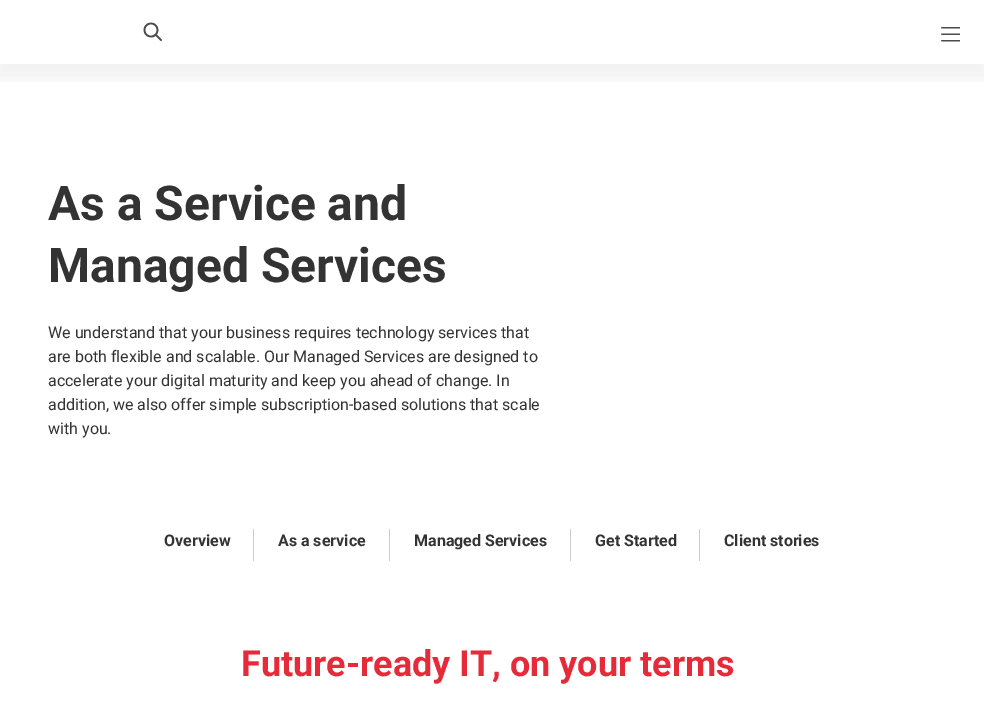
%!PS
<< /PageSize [984 723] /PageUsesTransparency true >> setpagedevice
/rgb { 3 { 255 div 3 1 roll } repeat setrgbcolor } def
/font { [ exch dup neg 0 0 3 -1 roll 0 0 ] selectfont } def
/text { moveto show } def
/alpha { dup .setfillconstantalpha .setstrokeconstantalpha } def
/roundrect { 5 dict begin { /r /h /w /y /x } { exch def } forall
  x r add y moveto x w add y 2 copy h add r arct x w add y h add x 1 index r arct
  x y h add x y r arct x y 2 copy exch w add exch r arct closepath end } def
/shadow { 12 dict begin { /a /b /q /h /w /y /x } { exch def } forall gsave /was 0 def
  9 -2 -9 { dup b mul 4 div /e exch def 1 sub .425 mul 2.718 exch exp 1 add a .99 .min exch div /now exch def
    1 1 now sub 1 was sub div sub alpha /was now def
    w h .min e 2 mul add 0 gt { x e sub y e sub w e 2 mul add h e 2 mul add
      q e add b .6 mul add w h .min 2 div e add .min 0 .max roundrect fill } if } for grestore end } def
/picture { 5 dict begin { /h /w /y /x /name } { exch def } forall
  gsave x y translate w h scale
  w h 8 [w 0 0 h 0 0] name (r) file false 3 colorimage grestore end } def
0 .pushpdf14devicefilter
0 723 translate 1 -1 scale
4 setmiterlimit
255 255 255 rgb
0 0 984 723 rectfill
gsave
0 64 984 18 rectclip
0 0 0 rgb
-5 5 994 74 0 10 0.05 shadow
grestore
(img_01.rgb) 143 22 19 19 picture
(img_02.rgb) 941 27 19 15 picture
204 204 204 rgb
253 529 1 32 rectfill
389 529 1 32 rectfill
570 529 1 32 rectfill
699 529 1 32 rectfill
/Roboto-Bold 48 font
51 51 51 rgb
(As a Service and) 48 220 text
(Managed Services) 48 282 text
/Roboto-Regular 16 font
(We understand that your business requires technology services that) 48 338 text
(are both flexible and scalable. Our Managed Services are designed to) 48 362 text
(accelerate your digital maturity and keep you ahead of change. In) 48 386 text
(addition, we also offer simple subscription-based solutions that scale) 48 410 text
(with you.) 48 434 text
/Roboto-Bold 16 font
(Overview) 164 546 text
(As a service) 278 546 text
(Managed Services) 414 546 text
(Get Started) 595 546 text
(Client stories) 724 546 text
/Roboto-Bold 36 font
229 43 57 rgb
(Future-ready IT, on your terms) 241 676 text
.poppdf14devicefilter showpage
